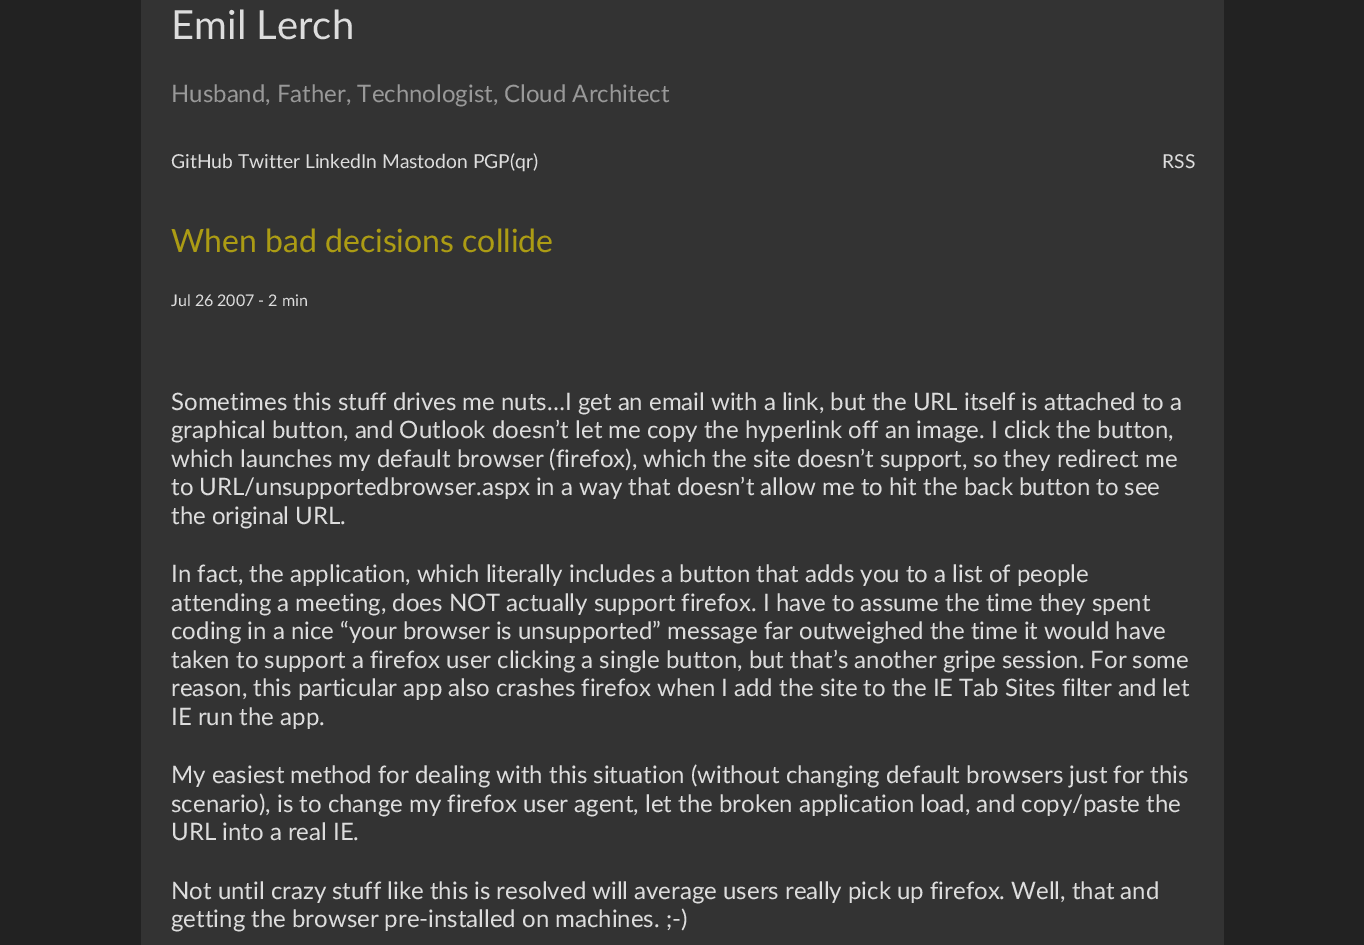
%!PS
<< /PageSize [1364 945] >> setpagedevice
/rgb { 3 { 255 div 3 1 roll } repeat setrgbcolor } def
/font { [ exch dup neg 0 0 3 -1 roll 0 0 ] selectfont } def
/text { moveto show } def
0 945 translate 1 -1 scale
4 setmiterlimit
34 34 34 rgb
0 0 1364 945 rectfill
51 51 51 rgb
141 0 1083 945 rectfill
/Lato-Regular 40 font
221 221 221 rgb
(Emil Lerch) 171 39 text
/Lato-Regular 24 font
153 153 153 rgb
(Husband, Father, Technologist, Cloud Architect) 171 102 text
/Lato-Regular 19.25 font
221 221 221 rgb
(GitHub Twitter LinkedIn Mastodon PGP\(qr\)) 171 168 text
(RSS) 1162 168 text
/Lato-Regular 32 font
172 156 20 rgb
(When bad decisions collide) 171 252 text
/Lato-Regular 16 font
221 221 221 rgb
(Jul 26 2007 - 2 min) 171 306 text
/Lato-Regular 24 font
(Sometimes this stuff drives me nuts…I get an email with a link, but the URL itself is attached to a) 171 410 text
(graphical button, and Outlook doesn’t let me copy the hyperlink off an image. I click the button,) 171 438 text
(which launches my default browser \(firefox\), which the site doesn’t support, so they redirect me) 171 467 text
(to URL/unsupportedbrowser.aspx in a way that doesn’t allow me to hit the back button to see) 171 495 text
(the original URL.) 171 524 text
(In fact, the application, which literally includes a button that adds you to a list of people) 171 582 text
(attending a meeting, does NOT actually support firefox. I have to assume the time they spent) 171 611 text
(coding in a nice “your browser is unsupported” message far outweighed the time it would have) 171 639 text
(taken to support a firefox user clicking a single button, but that’s another gripe session. For some) 171 668 text
(reason, this particular app also crashes firefox when I add the site to the IE Tab Sites filter and let) 171 696 text
(IE run the app.) 171 725 text
(My easiest method for dealing with this situation \(without changing default browsers just for this) 171 783 text
(scenario\), is to change my firefox user agent, let the broken application load, and copy/paste the) 171 812 text
(URL into a real IE.) 171 840 text
(Not until crazy stuff like this is resolved will average users really pick up firefox. Well, that and) 171 899 text
(getting the browser pre-installed on machines. ;-\)) 171 927 text
showpage
